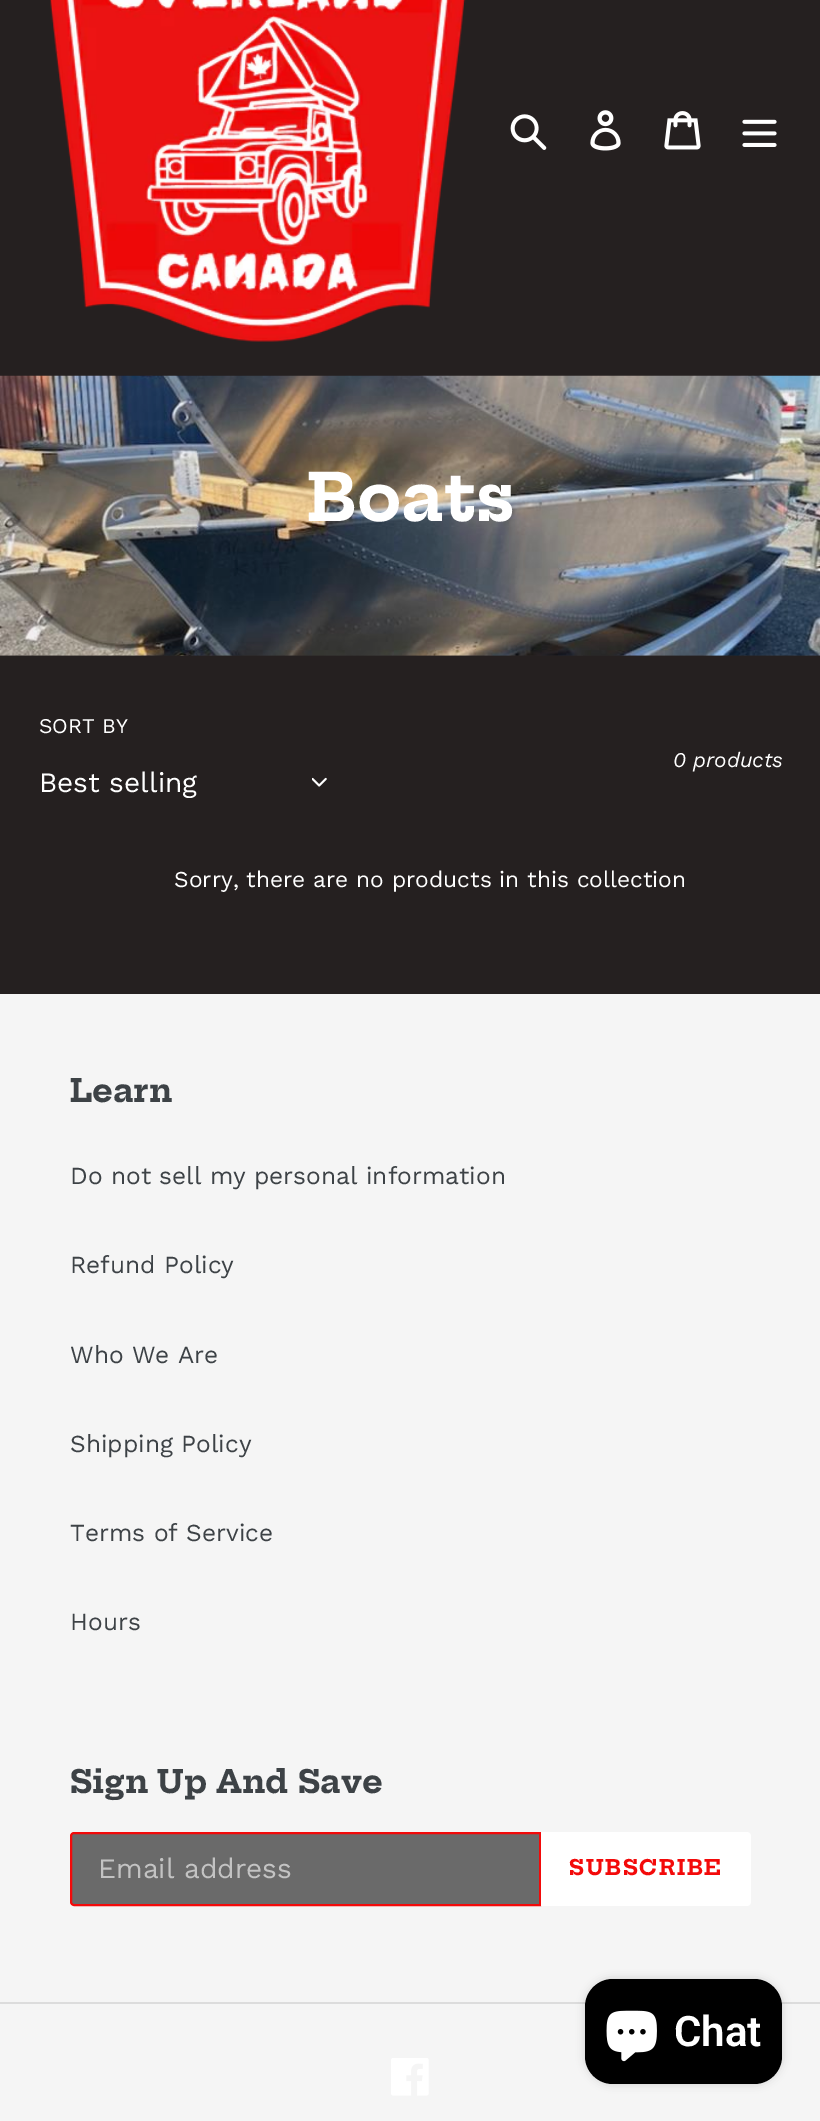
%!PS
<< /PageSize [820 2121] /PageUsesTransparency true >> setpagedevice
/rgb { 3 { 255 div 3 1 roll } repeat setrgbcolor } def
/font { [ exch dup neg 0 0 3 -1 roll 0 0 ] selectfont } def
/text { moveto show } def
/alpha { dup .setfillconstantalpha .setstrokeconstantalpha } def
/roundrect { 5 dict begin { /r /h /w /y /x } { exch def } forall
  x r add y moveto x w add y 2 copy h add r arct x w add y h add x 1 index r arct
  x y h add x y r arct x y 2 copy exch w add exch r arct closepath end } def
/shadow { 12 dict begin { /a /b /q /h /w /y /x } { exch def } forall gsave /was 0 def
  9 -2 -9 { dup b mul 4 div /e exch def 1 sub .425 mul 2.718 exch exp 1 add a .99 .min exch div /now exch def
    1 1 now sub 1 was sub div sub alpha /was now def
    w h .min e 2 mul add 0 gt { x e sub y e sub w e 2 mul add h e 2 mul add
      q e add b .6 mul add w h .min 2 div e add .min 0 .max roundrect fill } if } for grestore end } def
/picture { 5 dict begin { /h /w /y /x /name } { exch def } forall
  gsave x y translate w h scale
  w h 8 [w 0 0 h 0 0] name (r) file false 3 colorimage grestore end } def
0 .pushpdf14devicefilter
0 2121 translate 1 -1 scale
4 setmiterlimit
37 32 32 rgb
0 0 820 2121 rectfill
43 38 38 rgb
0 655 820 1 rectfill
(img_01.rgb) 50 0 416 342 picture
(img_02.rgb) 510 114 37 36 picture
(img_03.rgb) 590 110 31 41 picture
(img_04.rgb) 664 111 37 39 picture
(img_05.rgb) 742 119 35 28 picture
(img_06.rgb) 0 375 820 281 picture
(img_07.rgb) 312 777 15 10 picture
245 245 245 rgb
0 994 820 1127 rectfill
106 106 106 rgb
74 1833 moveto 466 0 rlineto 0 72 rlineto -466 0 rlineto -1.5 0 -3 -1.5 -3 -3 rcurveto 0 -66 rlineto 0 -1.5 1.5 -3 3 -3 rcurveto closepath gsave fill grestore
243 10 10 rgb
2 setlinewidth
stroke
255 255 255 rgb
541 1832 moveto 206 0 rlineto 2 0 4 2 4 4 rcurveto 0 66 rlineto 0 2 -2 4 -4 4 rcurveto -206 0 rlineto closepath fill
220 220 220 rgb
0 2002 820 2 rectfill
(img_08.rgb) 391 2058 38 38 picture
0 0 0 rgb
585 1979 197 105 28 4.5 0.15 shadow
585 1979 197 105 28 roundrect fill
(img_09.rgb) 606 2010 51 52 picture
/HeptaSlab-Bold 65 font
255 255 255 rgb
(Boats) 307 521 text
/WorkSans-Regular 21 font
(SORT BY) 39 733 text
/WorkSans-Regular 28 font
(Best selling) 39 792 text
/WorkSans-Italic 21 font
(0 products) 673 767 text
/WorkSans-Regular 22.75 font
(Sorry, there are no products in this collection) 174 887 text
/HeptaSlab-Bold 31.5 font
61 66 70 rgb
(Learn) 70 1102 text
/WorkSans-Regular 24.5 font
(Do not sell my personal information) 70 1184 text
(Refund Policy) 70 1273 text
(Who We Are) 70 1363 text
(Shipping Policy) 70 1452 text
(Terms of Service) 70 1541 text
(Hours) 70 1630 text
/HeptaSlab-Bold 31.5 font
(Sign Up And Save) 70 1793 text
/WorkSans-Regular 28 font
195 195 195 rgb
(Email address) 98 1878 text
/HeptaSlab-Bold 21 font
243 10 10 rgb
569 1875 moveto 1.75 0 (SUBSCRIBE) ashow
/Roboto-SemiBold 42 font
255 255 255 rgb
(Chat) 674 2046 text
.poppdf14devicefilter showpage
